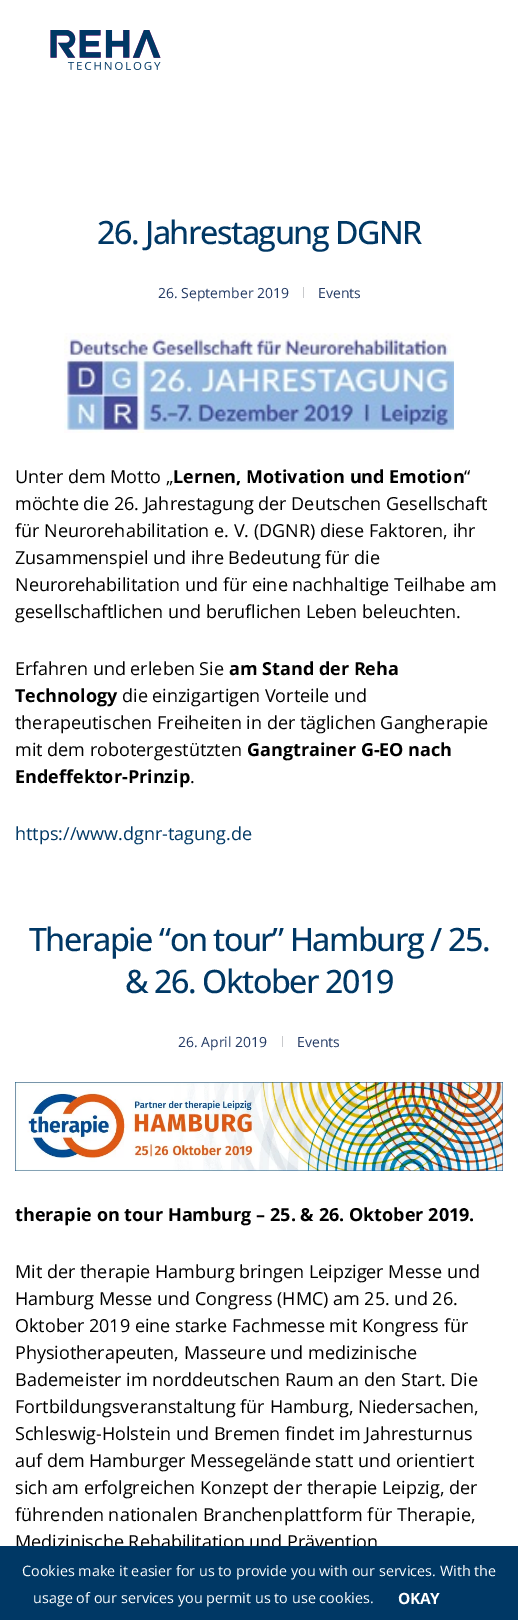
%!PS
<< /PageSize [518 1620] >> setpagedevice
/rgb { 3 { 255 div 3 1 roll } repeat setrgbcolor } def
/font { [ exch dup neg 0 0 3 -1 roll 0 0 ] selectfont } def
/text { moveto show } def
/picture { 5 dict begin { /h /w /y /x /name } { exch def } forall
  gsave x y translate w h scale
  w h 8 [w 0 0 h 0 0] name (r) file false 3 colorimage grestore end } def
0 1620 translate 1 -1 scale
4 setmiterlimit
255 255 255 rgb
0 0 518 1620 rectfill
(img_01.rgb) 50 30 111 40 picture
200 201 204 rgb
303 287 1 11 rectfill
(img_02.rgb) 64 333 390 100 picture
282 1036 1 11 rectfill
(img_03.rgb) 15 1082 488 89 picture
/OpenSans-Medium 32.25 font
0 56 101 rgb
97 244 moveto -1.5 0 (26. Jahrestagung DGNR) ashow
/OpenSans-Regular 14 font
35 58 100 rgb
(26. September 2019) 158 298 text
(Events) 318 298 text
/OpenSans-Regular 18 font
0 0 0 rgb
(Unter dem Motto „) 15 483 text
/OpenSans-Bold 18 font
(Lernen, Motivation und Emotion) 173 483 text
/OpenSans-Regular 18 font
(“) 464 483 text
(möchte die 26. Jahrestagung der Deutschen Gesellschaft) 15 510 text
(für Neurorehabilitation e. V. \(DGNR\) diese Faktoren, ihr) 15 537 text
(Zusammenspiel und ihre Bedeutung für die) 15 564 text
(Neurorehabilitation und für eine nachhaltige Teilhabe am) 15 591 text
(gesellschaftlichen und beruflichen Leben beleuchten.) 15 618 text
(Erfahren und erleben Sie) 15 675 text
/OpenSans-Bold 18 font
(am Stand der Reha) 229 675 text
(Technology) 15 702 text
/OpenSans-Regular 18 font
(die einzigartigen Vorteile und) 122 702 text
(therapeutischen Freiheiten in der täglichen Gangherapie) 15 729 text
(mit dem robotergestützten) 15 756 text
/OpenSans-Bold 18 font
(Gangtrainer G-EO nach) 247 756 text
(Endeffektor-Prinzip) 15 783 text
/OpenSans-Regular 18 font
(.) 190 783 text
0 56 101 rgb
(https://www.dgnr-tagung.de) 15 840 text
/OpenSans-Medium 32.25 font
29 951 moveto -1.5 0 (Therapie “on tour” Hamburg / 25.) ashow
125 993 moveto -1.5 0 (& 26. Oktober 2019) ashow
/OpenSans-Regular 14 font
35 58 100 rgb
(26. April 2019) 178 1047 text
(Events) 297 1047 text
/OpenSans-Bold 18 font
0 0 0 rgb
(therapie on tour Hamburg – 25. & 26. Oktober 2019.) 15 1221 text
/OpenSans-Regular 18 font
(Mit der therapie Hamburg bringen Leipziger Messe und) 15 1278 text
(Hamburg Messe und Congress \(HMC\) am 25. und 26.) 15 1305 text
(Oktober 2019 eine starke Fachmesse mit Kongress für) 15 1332 text
(Physiotherapeuten, Masseure und medizinische) 15 1359 text
(Bademeister im norddeutschen Raum an den Start. Die) 15 1386 text
(Fortbildungsveranstaltung für Hamburg, Niedersachen,) 15 1413 text
(Schleswig-Holstein und Bremen findet im Jahresturnus) 15 1440 text
(auf dem Hamburger Messegelände statt und orientiert) 15 1467 text
(sich am erfolgreichen Konzept der therapie Leipzig, der) 15 1494 text
(führenden nationalen Branchenplattform für Therapie,) 15 1521 text
(Medizinische Rehabilitation und Prävention) 15 1548 text
0 56 101 rgb
0 1546 518 74 rectfill
/OpenSans-Regular 14.4 font
255 255 255 rgb
(Cookies make it easier for us to provide you with our services. With the) 22 1576 text
(usage of our services you permit us to use cookies.) 33 1603 text
/OpenSans-Bold 15.5 font
398 1604 moveto -0.5 0 (OKAY) ashow
showpage
